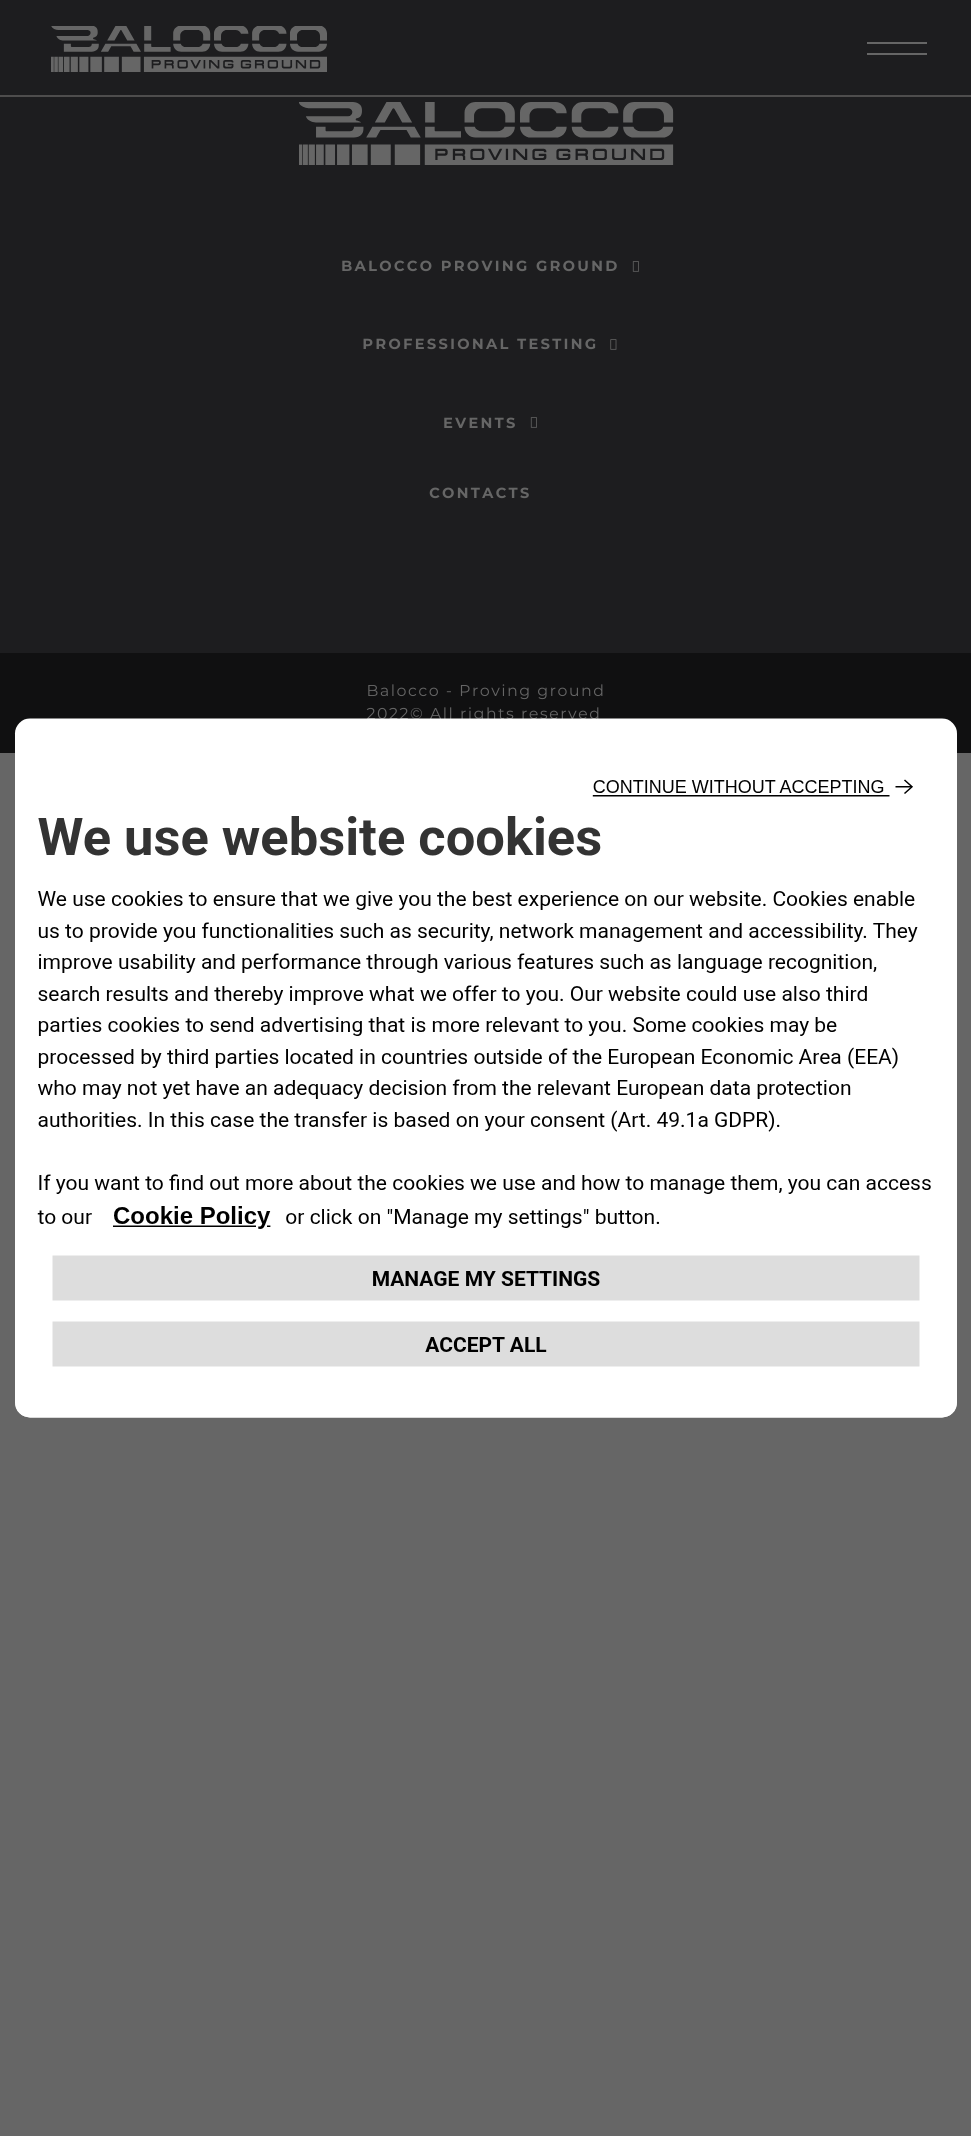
%!PS
<< /PageSize [971 2136] >> setpagedevice
/rgb { 3 { 255 div 3 1 roll } repeat setrgbcolor } def
/font { [ exch dup neg 0 0 3 -1 roll 0 0 ] selectfont } def
/picture { 5 dict begin { /h /w /y /x /name } { exch def } forall
  gsave x y translate w h scale
  w h 8 [w 0 0 h 0 0] name (r) file false 3 colorimage grestore end } def
0 2136 translate 1 -1 scale
4 setmiterlimit
255 255 255 rgb
0 0 971 2136 rectfill
72 73 77 rgb
0 0 971 653 rectfill
(img_02.rgb) 51 26 276 46 picture
255 255 255 rgb
867 42 60 2 rectfill
867 53 60 2 rectfill
195 192 192 rgb
0 95 971 2 rectfill
(img_03.rgb) 299 102 375 63 picture
(img_04.rgb) 632 261 7 11 picture
(img_05.rgb) 610 339 7 11 picture
(img_04.rgb) 530 417 7 11 picture
39 39 42 rgb
0 653 971 100 rectfill
/Montserrat-Bold 14.6 font
255 255 255 rgb
341 271 moveto 2.3 0 (BALOCCO PROVING GROUND) ashow
362 349 moveto 2.3 0 (PROFESSIONAL TESTING) ashow
443 428 moveto 2.3 0 (EVENTS) ashow
429 498 moveto 2.3 0 (CONTACTS) ashow
/Montserrat-Regular 15.75 font
367 696 moveto 1.55 0 (Balocco - Proving ground) ashow
367 719 moveto 1.55 0 (2022© All rights reserved) ashow
(img_01.rgb) 0 0 971 2136 picture
showpage
